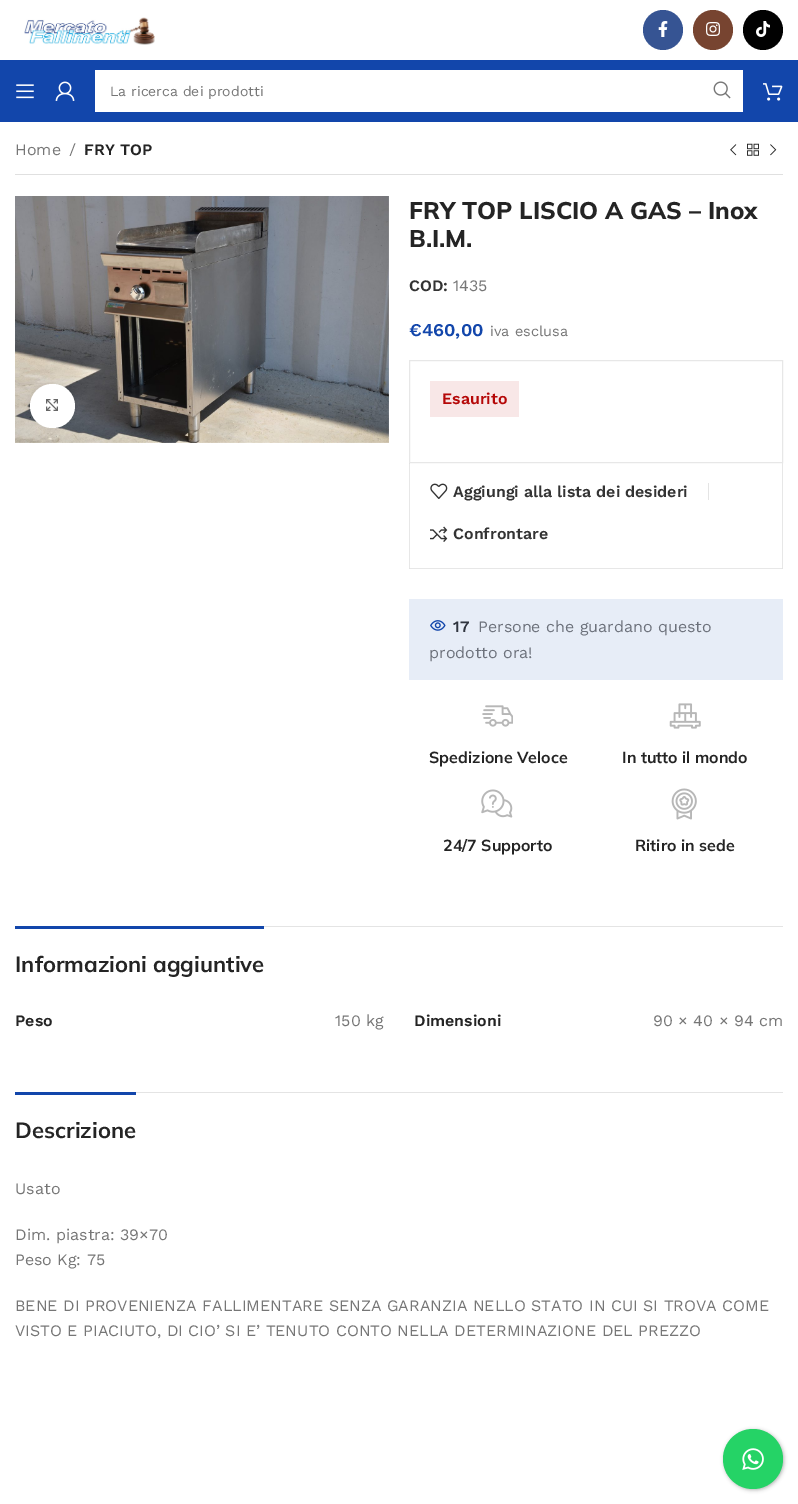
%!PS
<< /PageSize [798 1504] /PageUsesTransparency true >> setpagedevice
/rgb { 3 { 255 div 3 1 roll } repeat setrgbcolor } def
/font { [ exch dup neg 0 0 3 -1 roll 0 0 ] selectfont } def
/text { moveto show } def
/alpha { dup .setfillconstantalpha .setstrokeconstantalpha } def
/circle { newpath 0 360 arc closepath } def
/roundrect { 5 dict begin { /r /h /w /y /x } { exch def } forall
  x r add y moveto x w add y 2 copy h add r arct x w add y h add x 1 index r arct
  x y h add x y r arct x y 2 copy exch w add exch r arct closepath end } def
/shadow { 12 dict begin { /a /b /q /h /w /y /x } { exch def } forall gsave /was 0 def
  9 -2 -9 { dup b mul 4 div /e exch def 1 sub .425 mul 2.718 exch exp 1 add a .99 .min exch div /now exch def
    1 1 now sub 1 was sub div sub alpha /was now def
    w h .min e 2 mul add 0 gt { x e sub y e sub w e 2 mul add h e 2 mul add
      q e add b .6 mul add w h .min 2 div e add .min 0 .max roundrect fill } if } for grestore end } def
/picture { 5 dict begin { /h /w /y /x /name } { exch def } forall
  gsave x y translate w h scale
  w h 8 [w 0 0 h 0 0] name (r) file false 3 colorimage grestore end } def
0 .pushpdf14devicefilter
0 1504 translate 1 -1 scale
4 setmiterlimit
255 255 255 rgb
0 0 798 1504 rectfill
231 237 247 rgb
409 599 374 81 rectfill
(img_01.rgb) 24 17 131 28 picture
54 84 147 rgb
663 30 20 circle fill
(img_02.rgb) 658 21 10 16 picture
119 68 48 rgb
713 30 20 circle fill
(img_03.rgb) 706 22 14 14 picture
1 1 1 rgb
763 30 20 circle fill
(img_04.rgb) 756 21 14 16 picture
18 70 171 rgb
0 60 798 62 rectfill
(img_05.rgb) 16 84 18 15 picture
(img_06.rgb) 55 81 20 20 picture
255 255 255 rgb
95 70 648 42 rectfill
(img_07.rgb) 713 81 18 18 picture
(img_08.rgb) 763 83 20 18 picture
(img_09.rgb) 730 144 7 12 picture
(img_10.rgb) 747 143 12 13 picture
(img_11.rgb) 770 144 7 12 picture
224 224 224 rgb
15 174 768 1 rectfill
(img_12.rgb) 15 196 374 247 picture
0 0 0 rgb
30 384 45 44 22 2.5 0.08 shadow
255 255 255 rgb
30 384 45 44 22 roundrect fill
(img_13.rgb) 46 399 12 12 picture
231 231 231 rgb
409.5 360.5 373 102 rectstroke
248 231 231 rgb
430 381 89 36 rectfill
231 231 231 rgb
783 463 moveto 0 106 rlineto -1 -1 rlineto 0 -105 rlineto closepath fill
0.1 alpha
16 16 16 rgb
783 569 moveto -374 0 rlineto 1 -1 rlineto 372 0 rlineto closepath fill
409 569 moveto 0 -106 rlineto 1 0 rlineto 0 105 rlineto closepath fill
1 alpha
228 228 228 rgb
708 483 1 17 rectfill
(img_14.rgb) 430 483 18 16 picture
(img_15.rgb) 430 526 18 16 picture
(img_16.rgb) 430 620 16 11 picture
(img_17.rgb) 482 705 31 22 picture
(img_18.rgb) 669 703 32 26 picture
(img_19.rgb) 481 789 32 29 picture
(img_20.rgb) 671 788 26 32 picture
264 926 519 1 rectfill
18 70 171 rgb
15 926 249 3 rectfill
228 228 228 rgb
136 1092 647 1 rectfill
18 70 171 rgb
15 1092 121 3 rectfill
0 0 0 rgb
724 1430 60 60 30 2 0.3 shadow
37 211 102 rgb
753 1459 30 circle fill
(img_21.rgb) 742 1448 22 22 picture
/WorkSans-Regular 14 font
118 118 118 rgb
(La ricerca dei prodotti) 110 96 text
/WorkSans-Regular 16 font
(Home) 15 155 text
(/) 69 155 text
/WorkSans-SemiBold 16 font
36 36 36 rgb
(FRY TOP) 84 155 text
/Mulish-ExtraBold 24 font
(FRY TOP LISCIO A GAS – Inox) 409 219 text
(B.I.M.) 409 247 text
/WorkSans-SemiBold 16 font
51 51 51 rgb
(COD:) 409 291 text
/WorkSans-Regular 16 font
118 118 118 rgb
(1435) 453 291 text
/WorkSans-SemiBold 18 font
18 70 171 rgb
(€460,00) 409 336 text
/WorkSans-Regular 14.5 font
118 118 118 rgb
(iva esclusa) 490 336 text
/WorkSans-SemiBold 16 font
181 8 8 rgb
(Esaurito) 442 404 text
51 51 51 rgb
(Aggiungi alla lista dei desideri) 453 497 text
(Confrontare) 453 539 text
48 53 63 rgb
(17) 453 632 text
/WorkSans-Regular 16 font
109 114 124 rgb
(Persone che guardano questo) 478 632 text
(prodotto ora!) 429 658 text
/Mulish-Bold 16 font
36 36 36 rgb
(Spedizione Veloce) 429 763 text
(In tutto il mondo) 622 763 text
(24/7 Supporto) 443 851 text
(Ritiro in sede) 635 851 text
/Mulish-Bold 22 font
(Informazioni aggiuntive) 15 972 text
/WorkSans-SemiBold 16 font
(Peso) 15 1026 text
/WorkSans-Regular 16 font
118 118 118 rgb
(150 kg) 335 1026 text
/WorkSans-SemiBold 16 font
36 36 36 rgb
(Dimensioni) 414 1026 text
/WorkSans-Regular 16 font
118 118 118 rgb
(90 × 40 × 94 cm) 653 1026 text
/Mulish-Bold 22 font
36 36 36 rgb
(Descrizione) 15 1138 text
/WorkSans-Regular 16 font
118 118 118 rgb
(Usato) 15 1194 text
(Dim. piastra: 39×70) 15 1240 text
(Peso Kg: 75) 15 1265 text
(BENE DI PROVENIENZA FALLIMENTARE SENZA GARANZIA NELLO STATO IN CUI SI TROVA COME) 15 1311 text
(VISTO E PIACIUTO, DI CIO’ SI E’ TENUTO CONTO NELLA DETERMINAZIONE DEL PREZZO) 15 1336 text
.poppdf14devicefilter showpage
